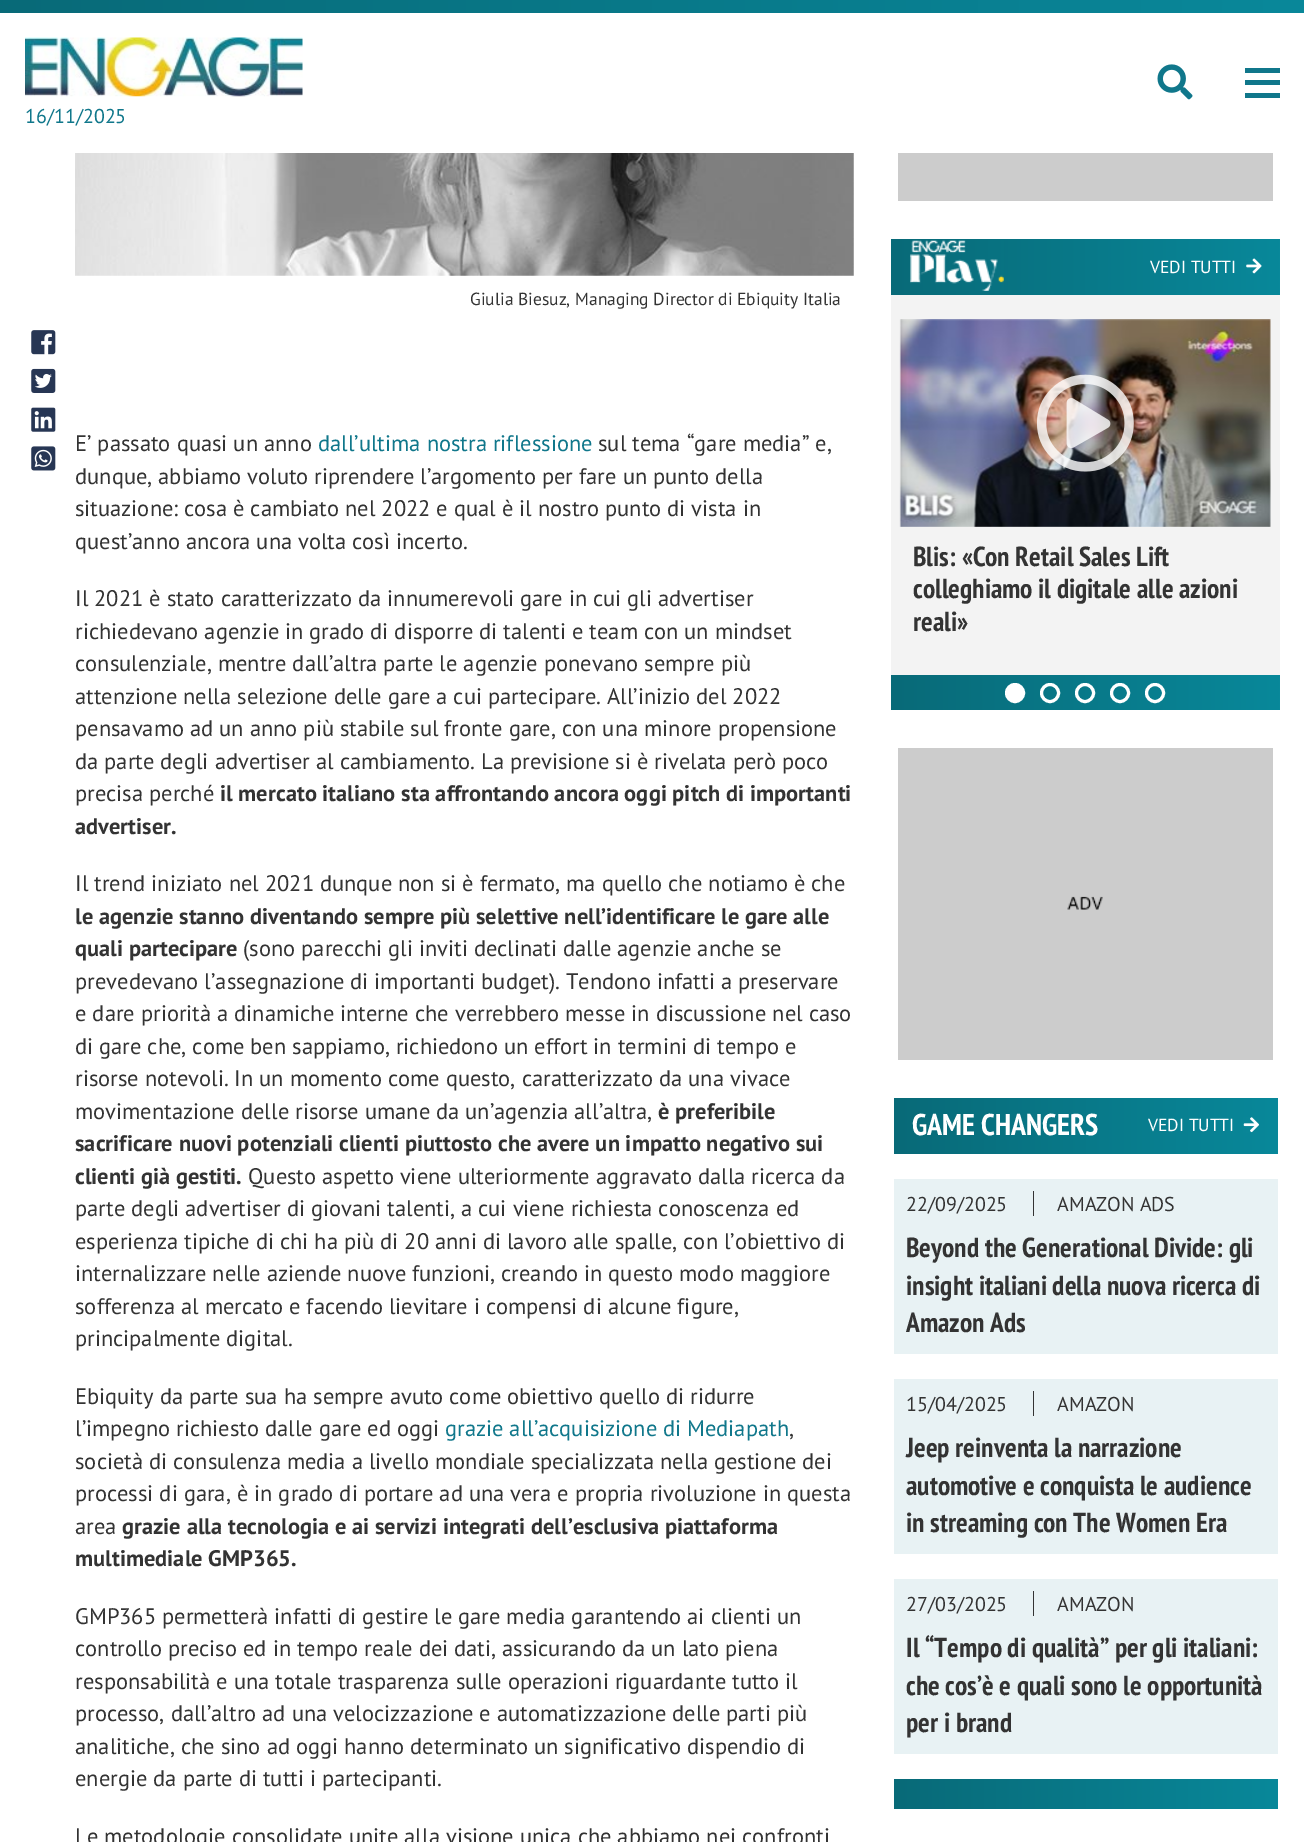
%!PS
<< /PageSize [1304 1842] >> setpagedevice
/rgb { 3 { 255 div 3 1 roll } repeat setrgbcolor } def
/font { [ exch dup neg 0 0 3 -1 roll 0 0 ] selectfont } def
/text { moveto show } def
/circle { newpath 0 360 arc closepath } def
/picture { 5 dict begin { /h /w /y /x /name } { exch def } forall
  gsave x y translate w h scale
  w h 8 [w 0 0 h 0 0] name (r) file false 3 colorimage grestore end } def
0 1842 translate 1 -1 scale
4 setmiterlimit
255 255 255 rgb
0 0 1304 1842 rectfill
gsave 0 0 moveto 1304 0 rlineto 0 13 rlineto -1304 0 rlineto closepath clip newpath
<< /ShadingType 2 /ColorSpace /DeviceRGB /Coords [0 6.3 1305 6.2] /Extend [true true] /Function << /FunctionType 2 /Domain [0 1] /C0 [0.031 0.416 0.471] /C1 [0.035 0.533 0.604] /N 1 >> >> shfill grestore
(img_01.rgb) 1157 64 36 36 picture
16 119 139 rgb
1245 80 35 5 rectfill
1245 68 35 5 rectfill
1245 93 35 5 rectfill
(img_02.rgb) 25 37 278 60 picture
(img_03.rgb) 75 153 779 123 picture
(img_04.rgb) 31 330 25 25 picture
(img_05.rgb) 31 368 25 25 picture
(img_06.rgb) 31 407 25 25 picture
(img_07.rgb) 31 446 25 25 picture
204 204 204 rgb
898 153 375 48 rectfill
243 243 243 rgb
891 295 389 380 rectfill
gsave 891 239 moveto 389 0 rlineto 0 56 rlineto -389 0 rlineto closepath clip newpath
<< /ShadingType 2 /ColorSpace /DeviceRGB /Coords [891 267 1280 267] /Extend [true true] /Function << /FunctionType 2 /Domain [0 1] /C0 [0.031 0.416 0.471] /C1 [0.035 0.533 0.604] /N 1 >> >> shfill grestore
(img_08.rgb) 910 240 94 51 picture
(img_09.rgb) 1246 258 16 16 picture
(img_10.rgb) 899 319 372 208 picture
(img_11.rgb) 1036 374 98 98 picture
gsave 891 675 moveto 389 0 rlineto 0 35 rlineto -389 0 rlineto closepath clip newpath
<< /ShadingType 2 /ColorSpace /DeviceRGB /Coords [891 693 1280 693] /Extend [true true] /Function << /FunctionType 2 /Domain [0 1] /C0 [0.031 0.416 0.471] /C1 [0.035 0.533 0.604] /N 1 >> >> shfill grestore
255 255 255 rgb
1015 693 8.5 circle gsave fill grestore
3 setlinewidth
stroke
1050 693 8.5 circle stroke
1085 693 8.5 circle stroke
1120 693 8.5 circle stroke
1155 693 8.5 circle stroke
204 204 204 rgb
898 748 375 312 rectfill
(img_12.rgb) 1067 896 36 14 picture
gsave 894 1098 moveto 384 0 rlineto 0 56 rlineto -384 0 rlineto closepath clip newpath
<< /ShadingType 2 /ColorSpace /DeviceRGB /Coords [894 1126 1278 1126] /Extend [true true] /Function << /FunctionType 2 /Domain [0 1] /C0 [0.031 0.416 0.471] /C1 [0.035 0.533 0.604] /N 1 >> >> shfill grestore
(img_13.rgb) 1243 1117 16 16 picture
232 242 244 rgb
894 1179 384 175 rectfill
51 51 51 rgb
1033 1191 1 25 rectfill
232 242 244 rgb
894 1379 384 175 rectfill
51 51 51 rgb
1033 1391 1 25 rectfill
232 242 244 rgb
894 1579 384 175 rectfill
51 51 51 rgb
1033 1591 1 25 rectfill
gsave 894 1779 moveto 384 0 rlineto 0 30 rlineto -384 0 rlineto closepath clip newpath
<< /ShadingType 2 /ColorSpace /DeviceRGB /Coords [894 1794 1278 1794] /Extend [true true] /Function << /FunctionType 2 /Domain [0 1] /C0 [0.031 0.416 0.471] /C1 [0.035 0.533 0.604] /N 1 >> >> shfill grestore
/PTSans-Regular 20 font
16 119 139 rgb
(16/11/2025) 25 123 text
/PTSans-Regular 17.5 font
51 51 51 rgb
(Giulia Biesuz, Managing Director di Ebiquity Italia) 470 305 text
/PTSans-Regular 22.5 font
(E’ passato quasi un anno) 75 451 text
16 119 139 rgb
(dall’ultima nostra riflessione) 318 451 text
51 51 51 rgb
(sul tema “gare media” e,) 598 451 text
(dunque, abbiamo voluto riprendere l’argomento per fare un punto della) 75 484 text
(situazione: cosa è cambiato nel 2022 e qual è il nostro punto di vista in) 75 516 text
(quest’anno ancora una volta così incerto.) 75 549 text
(Il 2021 è stato caratterizzato da innumerevoli gare in cui gli advertiser) 75 606 text
(richiedevano agenzie in grado di disporre di talenti e team con un mindset) 75 639 text
(consulenziale, mentre dall’altra parte le agenzie ponevano sempre più) 75 671 text
(attenzione nella selezione delle gare a cui partecipare. All’inizio del 2022) 75 704 text
(pensavamo ad un anno più stabile sul fronte gare, con una minore propensione) 75 736 text
(da parte degli advertiser al cambiamento. La previsione si è rivelata però poco) 75 769 text
(precisa perché) 75 801 text
/PTSans-Bold 22.5 font
(il mercato italiano sta affrontando ancora oggi pitch di importanti) 220 801 text
(advertiser.) 75 834 text
/PTSans-Regular 22.5 font
(Il trend iniziato nel 2021 dunque non si è fermato, ma quello che notiamo è che) 75 891 text
/PTSans-Bold 22.5 font
(le agenzie stanno diventando sempre più selettive nell’identificare le gare alle) 75 924 text
(quali partecipare) 75 956 text
/PTSans-Regular 22.5 font
(\(sono parecchi gli inviti declinati dalle agenzie anche se) 243 956 text
(prevedevano l’assegnazione di importanti budget\). Tendono infatti a preservare) 75 989 text
(e dare priorità a dinamiche interne che verrebbero messe in discussione nel caso) 75 1021 text
(di gare che, come ben sappiamo, richiedono un effort in termini di tempo e) 75 1054 text
(risorse notevoli. In un momento come questo, caratterizzato da una vivace) 75 1086 text
(movimentazione delle risorse umane da un’agenzia all’altra,) 75 1119 text
/PTSans-Bold 22.5 font
(è preferibile) 658 1119 text
(sacrificare nuovi potenziali clienti piuttosto che avere un impatto negativo sui) 75 1151 text
(clienti già gestiti.) 75 1184 text
/PTSans-Regular 22.5 font
(Questo aspetto viene ulteriormente aggravato dalla ricerca da) 248 1184 text
(parte degli advertiser di giovani talenti, a cui viene richiesta conoscenza ed) 75 1216 text
(esperienza tipiche di chi ha più di 20 anni di lavoro alle spalle, con l’obiettivo di) 75 1249 text
(internalizzare nelle aziende nuove funzioni, creando in questo modo maggiore) 75 1281 text
(sofferenza al mercato e facendo lievitare i compensi di alcune figure,) 75 1314 text
(principalmente digital.) 75 1346 text
(Ebiquity da parte sua ha sempre avuto come obiettivo quello di ridurre) 75 1404 text
(l’impegno richiesto dalle gare ed oggi) 75 1436 text
16 119 139 rgb
(grazie all’acquisizione di Mediapath) 445 1436 text
51 51 51 rgb
(,) 789 1436 text
(società di consulenza media a livello mondiale specializzata nella gestione dei) 75 1469 text
(processi di gara, è in grado di portare ad una vera e propria rivoluzione in questa) 75 1501 text
(area) 75 1534 text
/PTSans-Bold 22.5 font
(grazie alla tecnologia e ai servizi integrati dell’esclusiva piattaforma) 122 1534 text
(multimediale GMP365.) 75 1566 text
/PTSans-Regular 22.5 font
(GMP365 permetterà infatti di gestire le gare media garantendo ai clienti un) 75 1624 text
(controllo preciso ed in tempo reale dei dati, assicurando da un lato piena) 75 1656 text
(responsabilità e una totale trasparenza sulle operazioni riguardante tutto il) 75 1689 text
(processo, dall’altro ad una velocizzazione e automatizzazione delle parti più) 75 1721 text
(analitiche, che sino ad oggi hanno determinato un significativo dispendio di) 75 1754 text
(energie da parte di tutti i partecipanti.) 75 1786 text
(Le metodologie consolidate unite alla visione unica che abbiamo nei confronti) 75 1844 text
/PTSans-Regular 17.5 font
255 255 255 rgb
(VEDI TUTTI) 1150 273 text
/PTSansNarrow-Bold 27.5 font
51 51 51 rgb
(Blis: «Con Retail Sales Lift) 913 566 text
(colleghiamo il digitale alle azioni) 913 598 text
(reali») 913 631 text
/PTSansNarrow-Bold 30 font
255 255 255 rgb
(GAME CHANGERS) 912 1135 text
/PTSans-Regular 17.5 font
(VEDI TUTTI) 1148 1131 text
/PTSans-Regular 20 font
51 51 51 rgb
(22/09/2025) 906 1211 text
(AMAZON ADS) 1057 1211 text
/PTSansNarrow-Bold 27.5 font
(Beyond the Generational Divide: gli) 906 1257 text
(insight italiani della nuova ricerca di) 906 1295 text
(Amazon Ads) 906 1332 text
/PTSans-Regular 20 font
(15/04/2025) 906 1411 text
(AMAZON) 1057 1411 text
/PTSansNarrow-Bold 27.5 font
(Jeep reinventa la narrazione) 906 1457 text
(automotive e conquista le audience) 906 1495 text
(in streaming con The Women Era) 906 1532 text
/PTSans-Regular 20 font
(27/03/2025) 906 1611 text
(AMAZON) 1057 1611 text
/PTSansNarrow-Bold 27.5 font
(Il “Tempo di qualità” per gli italiani:) 906 1657 text
(che cos’è e quali sono le opportunità) 906 1695 text
(per i brand) 906 1732 text
showpage
